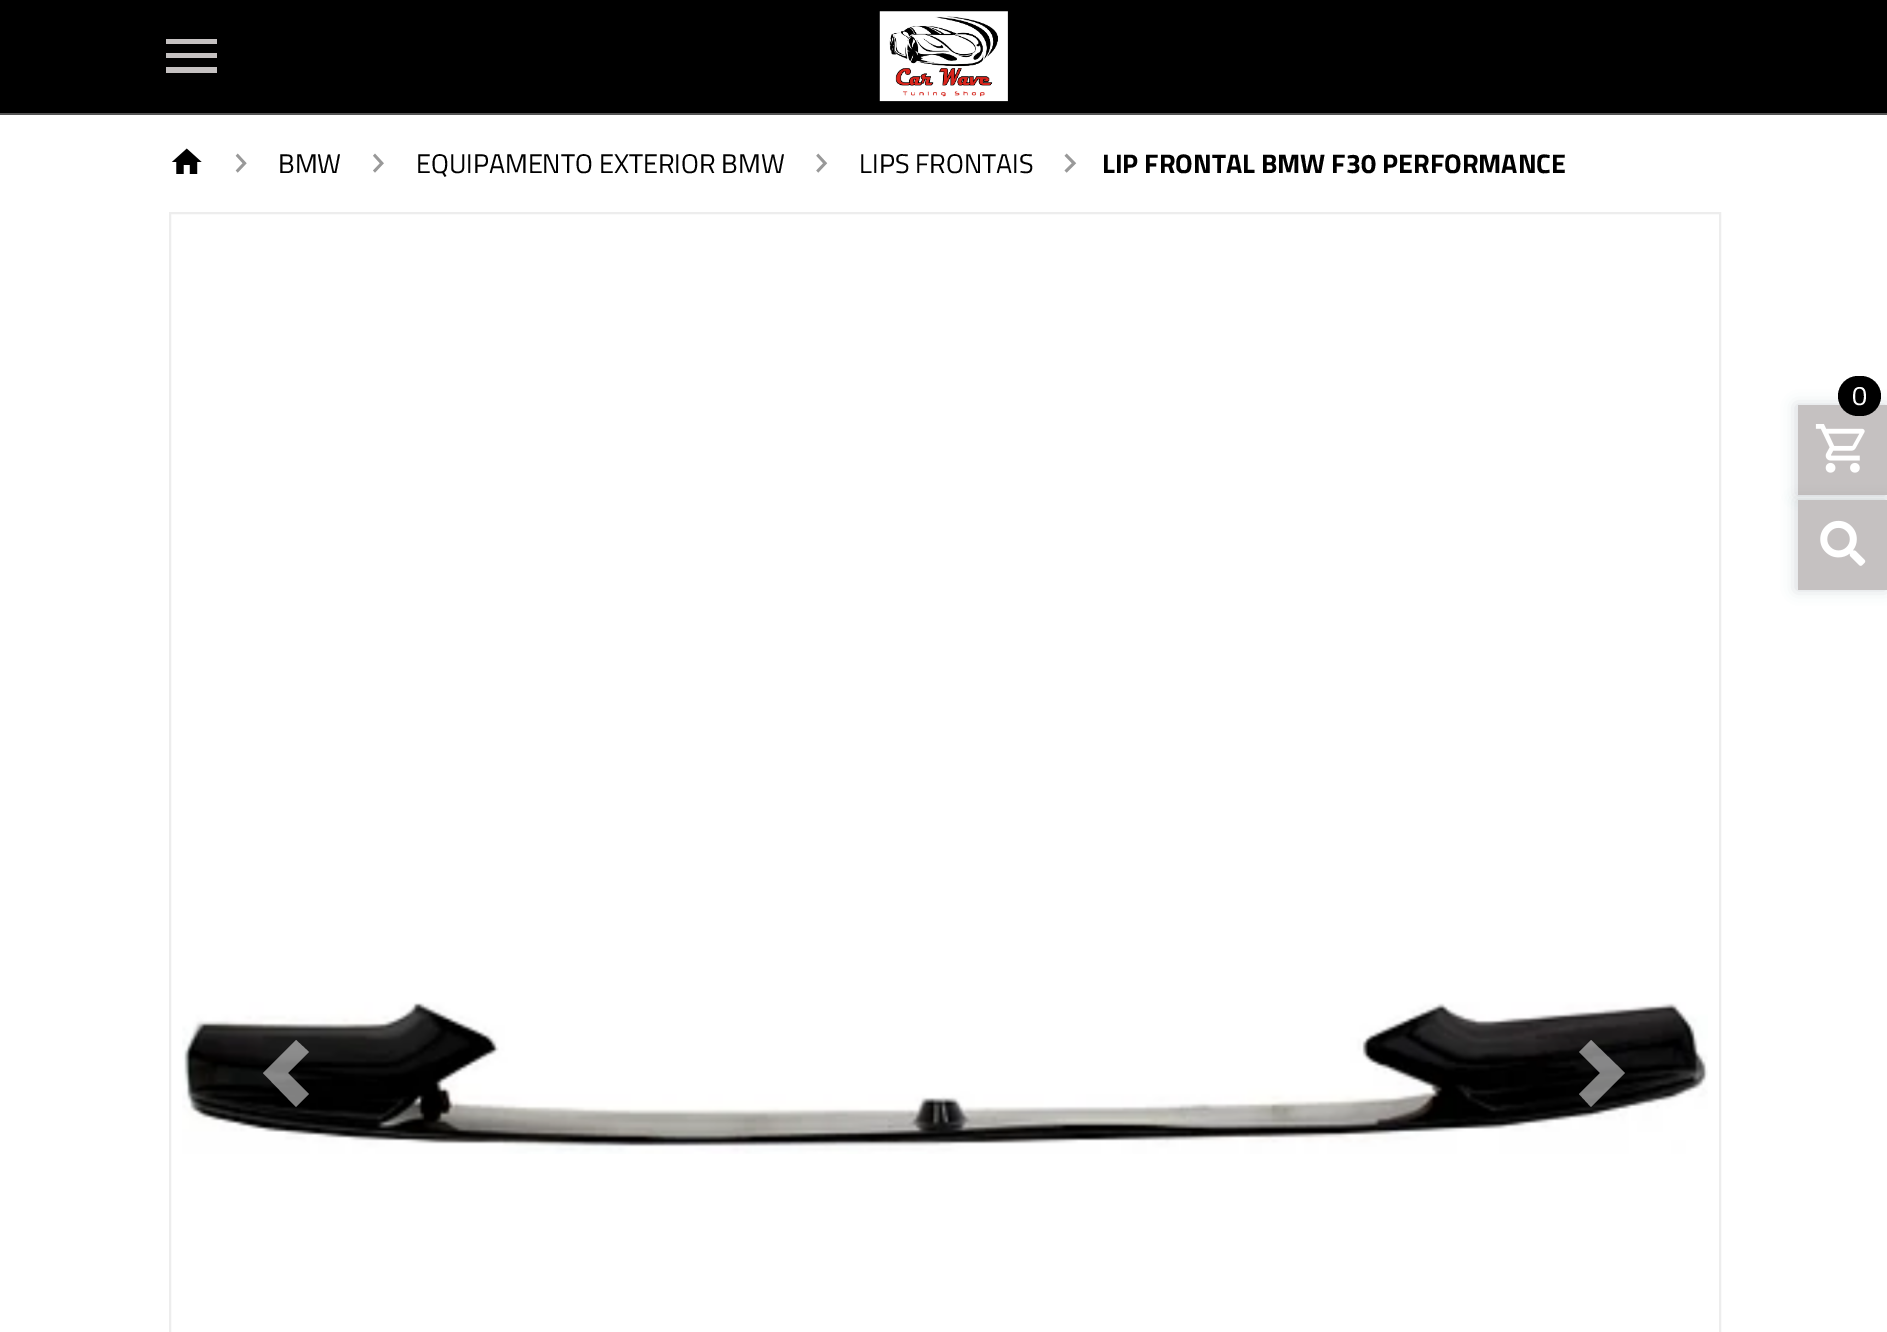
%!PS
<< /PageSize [1887 1332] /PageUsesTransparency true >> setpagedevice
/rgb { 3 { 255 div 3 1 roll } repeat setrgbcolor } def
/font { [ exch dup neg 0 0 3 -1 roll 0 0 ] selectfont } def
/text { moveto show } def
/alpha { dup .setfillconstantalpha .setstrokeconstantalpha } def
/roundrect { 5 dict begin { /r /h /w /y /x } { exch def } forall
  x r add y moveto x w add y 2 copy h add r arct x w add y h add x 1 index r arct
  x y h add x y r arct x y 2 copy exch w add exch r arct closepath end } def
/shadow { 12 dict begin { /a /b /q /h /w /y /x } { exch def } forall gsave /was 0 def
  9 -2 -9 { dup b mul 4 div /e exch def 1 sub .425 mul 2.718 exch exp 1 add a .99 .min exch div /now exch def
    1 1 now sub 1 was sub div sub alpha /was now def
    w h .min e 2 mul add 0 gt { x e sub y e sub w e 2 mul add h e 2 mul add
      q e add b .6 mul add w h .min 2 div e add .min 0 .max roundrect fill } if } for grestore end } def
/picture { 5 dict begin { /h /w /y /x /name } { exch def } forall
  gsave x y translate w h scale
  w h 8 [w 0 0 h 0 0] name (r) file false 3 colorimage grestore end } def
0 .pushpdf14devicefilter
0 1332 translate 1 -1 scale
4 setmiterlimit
255 255 255 rgb
0 0 1887 1332 rectfill
0 0 0 rgb
0 0 1887 113 rectfill
84 84 84 rgb
0 113 1887 2 rectfill
197 193 193 rgb
166 39 moveto 51 0 rlineto 0 5 rlineto -51 0 rlineto closepath 166 53 moveto 51 0 rlineto 0 5 rlineto -51 0 rlineto closepath 166 67 moveto 51 0 rlineto 0 6 rlineto -51 0 rlineto closepath fill
(img_01.rgb) 879 11 129 91 picture
(img_02.rgb) 171 148 31 26 picture
(img_03.rgb) 235 153 12 20 picture
(img_04.rgb) 373 153 11 20 picture
(img_05.rgb) 816 153 12 20 picture
(img_06.rgb) 1064 153 13 20 picture
237 237 237 rgb
2 setlinewidth
170 213 1550 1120 rectstroke
(img_07.rgb) 182 1002 1526 152 picture
0.5 alpha
255 255 255 rgb
296 1040 moveto -33 33 rlineto 33 34 rlineto 13 -13 rlineto -21 -21 rlineto 21 -21 rlineto closepath fill
1591 1040 moveto -12 12 rlineto 21 21 rlineto -21 21 rlineto 12 13 rlineto 34 -34 rlineto closepath fill
1 alpha
55 66 78 rgb
1796 405 90 90 0 7 0.2 shadow
197 193 193 rgb
1798 405 89 90 rectfill
0 0 0 rgb
1838 376 43 40 20 roundrect fill
(img_08.rgb) 1815 424 50 49 picture
55 66 78 rgb
1796 500 90 90 0 7 0.2 shadow
197 193 193 rgb
1798 500 89 90 rectfill
(img_09.rgb) 1820 520 46 46 picture
/TitilliumWeb-Regular 27 font
0 0 0 rgb
(BMW) 278 173 text
(EQUIPAMENTO EXTERIOR BMW) 416 173 text
(LIPS FRONTAIS) 859 173 text
/TitilliumWeb-Bold 27 font
(LIP FRONTAL BMW F30 PERFORMANCE) 1102 173 text
/TitilliumWeb-Regular 27 font
255 255 255 rgb
(0) 1852 405 text
.poppdf14devicefilter showpage
